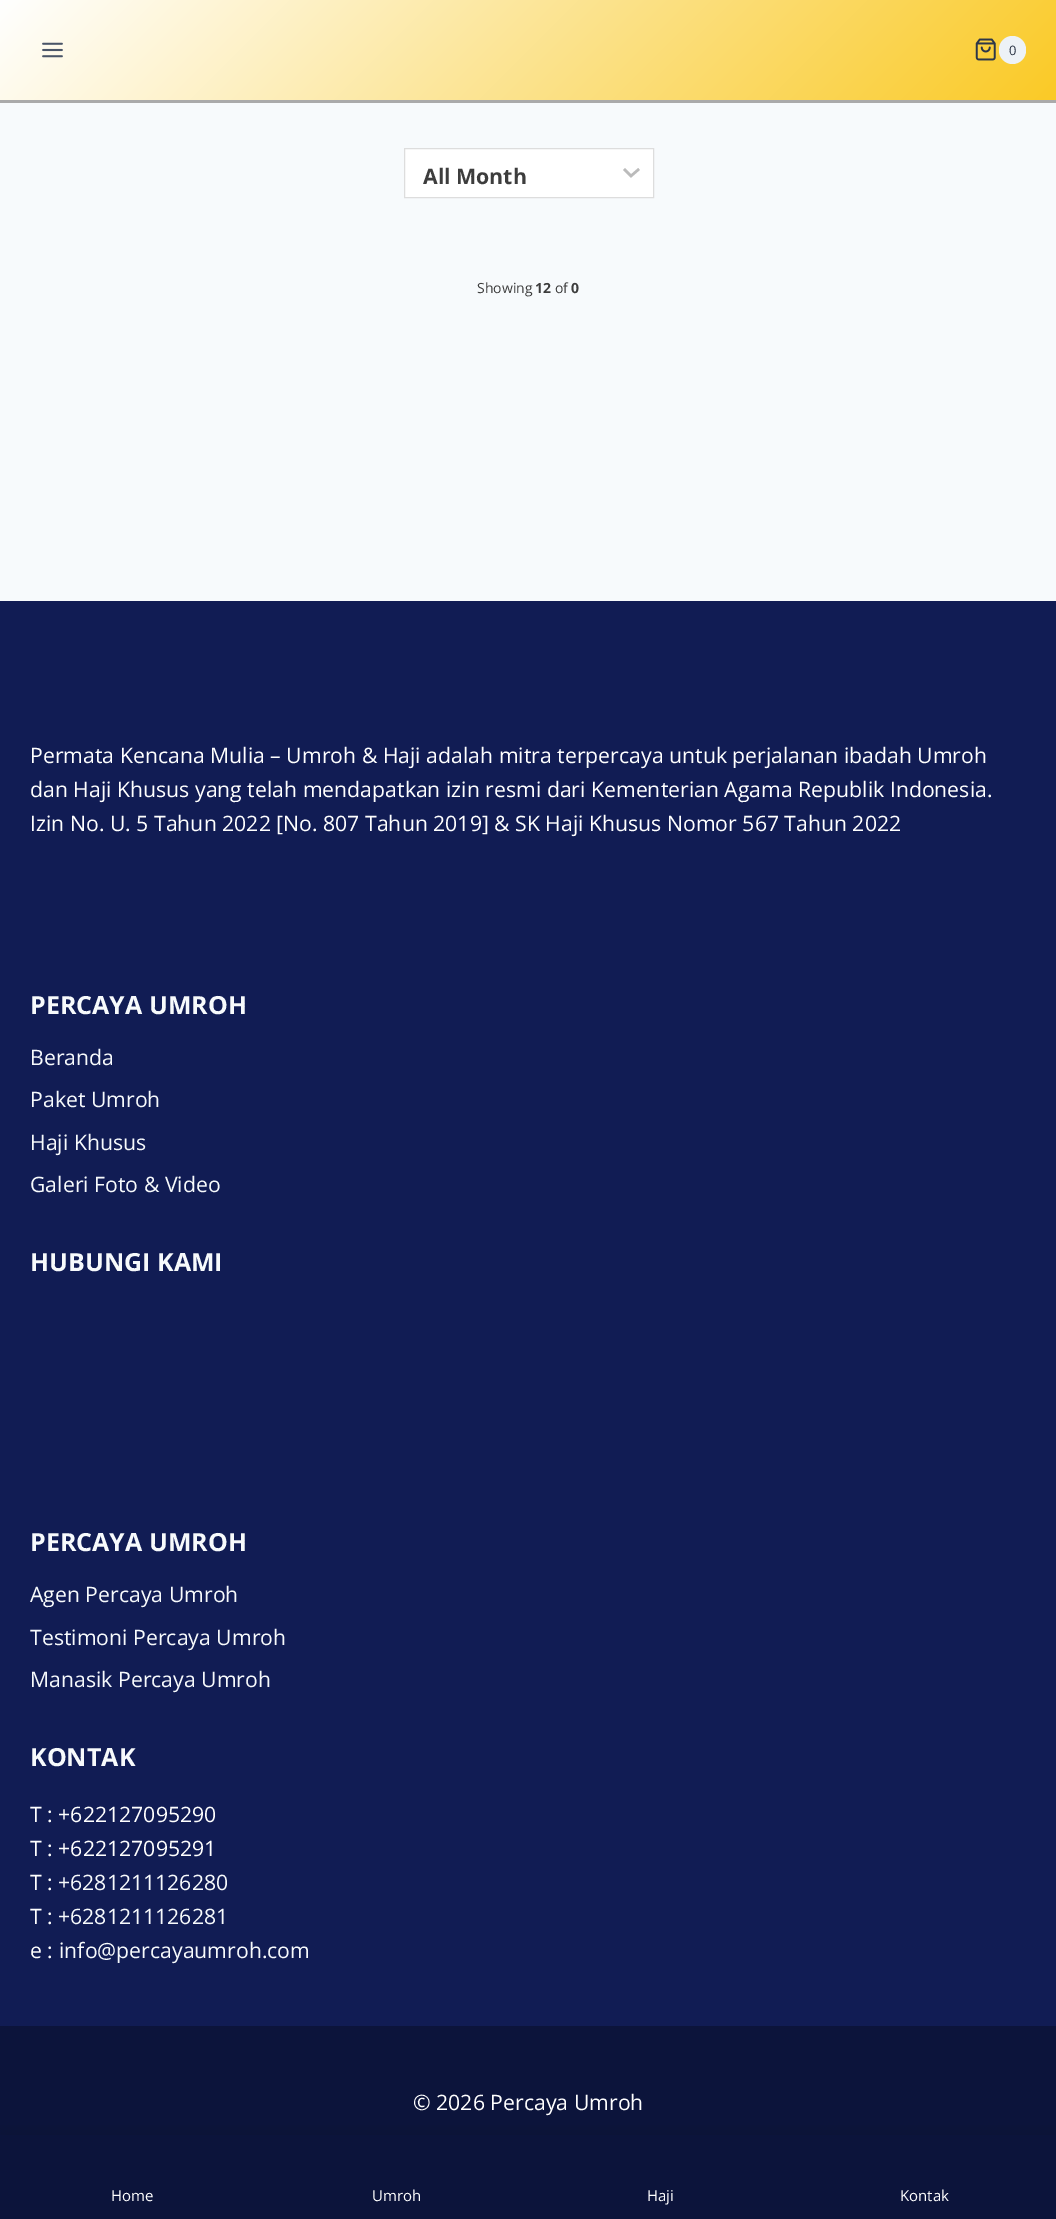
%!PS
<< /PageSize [1056 2219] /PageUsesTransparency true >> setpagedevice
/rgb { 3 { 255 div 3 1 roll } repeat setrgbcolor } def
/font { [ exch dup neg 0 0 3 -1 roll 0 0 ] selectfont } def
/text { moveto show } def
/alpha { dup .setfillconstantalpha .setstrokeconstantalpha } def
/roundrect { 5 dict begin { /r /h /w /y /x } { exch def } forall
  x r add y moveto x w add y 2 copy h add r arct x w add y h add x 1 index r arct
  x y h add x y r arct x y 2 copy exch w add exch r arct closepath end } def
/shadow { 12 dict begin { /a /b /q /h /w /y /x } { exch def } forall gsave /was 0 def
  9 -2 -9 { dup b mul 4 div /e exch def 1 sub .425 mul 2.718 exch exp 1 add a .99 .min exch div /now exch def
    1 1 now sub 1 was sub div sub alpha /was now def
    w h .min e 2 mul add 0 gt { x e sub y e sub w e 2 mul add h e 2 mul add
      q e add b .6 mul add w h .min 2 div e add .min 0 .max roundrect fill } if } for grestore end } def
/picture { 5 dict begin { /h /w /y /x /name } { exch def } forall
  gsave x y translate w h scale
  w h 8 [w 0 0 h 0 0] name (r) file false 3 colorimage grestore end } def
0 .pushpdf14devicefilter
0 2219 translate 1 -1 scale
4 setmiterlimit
247 250 252 rgb
0 0 1056 2219 rectfill
gsave 0 0 moveto 1056 0 rlineto 0 100 rlineto -1056 0 rlineto closepath clip newpath
<< /ShadingType 2 /ColorSpace /DeviceRGB /Coords [239 -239 817 339] /Extend [true true] /Function << /FunctionType 2 /Domain [0 1] /C0 [1 1 1] /C1 [0.98 0.792 0.149] /N 1 >> >> shfill grestore
170 170 170 rgb
0 100 1056 3 rectfill
(img_01.rgb) 42 42 21 16 picture
(img_02.rgb) 975 38 21 23 picture
237 242 247 rgb
999 36 27 28 13.5 roundrect fill
255 255 255 rgb
405 149 248 48 rectfill
187 187 187 rgb
2.5 setlinewidth
624 169 moveto 7 7 rlineto 8 -7 rlineto stroke
221 221 221 rgb
1 setlinewidth
404.5 148.5 249 49 rectstroke
17 28 84 rgb
0 601 1056 1425 rectfill
12 20 59 rgb
0 2026 1056 109 rectfill
0 0 0 rgb
0 2129 1056 85 0 6 0.1 shadow
12 20 59 rgb
0 2135 1056 84 rectfill
/OpenSans-Regular 13 font
45 55 72 rgb
(0) 1009 55 text
/OpenSans-Bold 21.25 font
61 61 61 rgb
(All Month) 423 184 text
/OpenSans-Regular 14 font
(Showing) 477 293 text
/OpenSans-Bold 14 font
(12) 535 293 text
/OpenSans-Regular 14 font
(of) 555 293 text
/OpenSans-Bold 14 font
(0) 571 293 text
/OpenSans-Regular 21.25 font
255 255 255 rgb
(Permata Kencana Mulia – Umroh & Haji adalah mitra terpercaya untuk perjalanan ibadah Umroh) 30 763 text
(dan Haji Khusus yang telah mendapatkan izin resmi dari Kementerian Agama Republik Indonesia.) 30 797 text
(Izin No. U. 5 Tahun 2022 [No. 807 Tahun 2019] & SK Haji Khusus Nomor 567 Tahun 2022) 30 831 text
/OpenSans-Bold 25 font
247 250 252 rgb
(PERCAYA UMROH) 30 1014 text
/OpenSans-Regular 21.25 font
(Beranda) 30 1065 text
(Paket Umroh) 30 1107 text
(Haji Khusus) 30 1150 text
(Galeri Foto & Video) 30 1192 text
/OpenSans-Bold 25 font
(HUBUNGI KAMI) 30 1271 text
(PERCAYA UMROH) 30 1551 text
/OpenSans-Regular 21.25 font
(Agen Percaya Umroh) 30 1602 text
(Testimoni Percaya Umroh) 30 1645 text
(Manasik Percaya Umroh) 30 1687 text
/OpenSans-Bold 25 font
(KONTAK) 30 1766 text
/OpenSans-Regular 21.25 font
255 255 255 rgb
(T : +622127095290) 30 1822 text
(T : +622127095291) 30 1856 text
(T :) 30 1890 text
247 250 252 rgb
(+6281211126280) 58 1890 text
255 255 255 rgb
(T :) 30 1924 text
247 250 252 rgb
(+6281211126281) 58 1924 text
255 255 255 rgb
(e :) 30 1958 text
247 250 252 rgb
(info@percayaumroh.com) 59 1958 text
255 255 255 rgb
(© 2026 Percaya Umroh) 413 2110 text
/OpenSans-Regular 15 font
(Home) 111 2201 text
(Umroh) 372 2201 text
(Haji) 647 2201 text
(Kontak) 900 2201 text
.poppdf14devicefilter showpage
